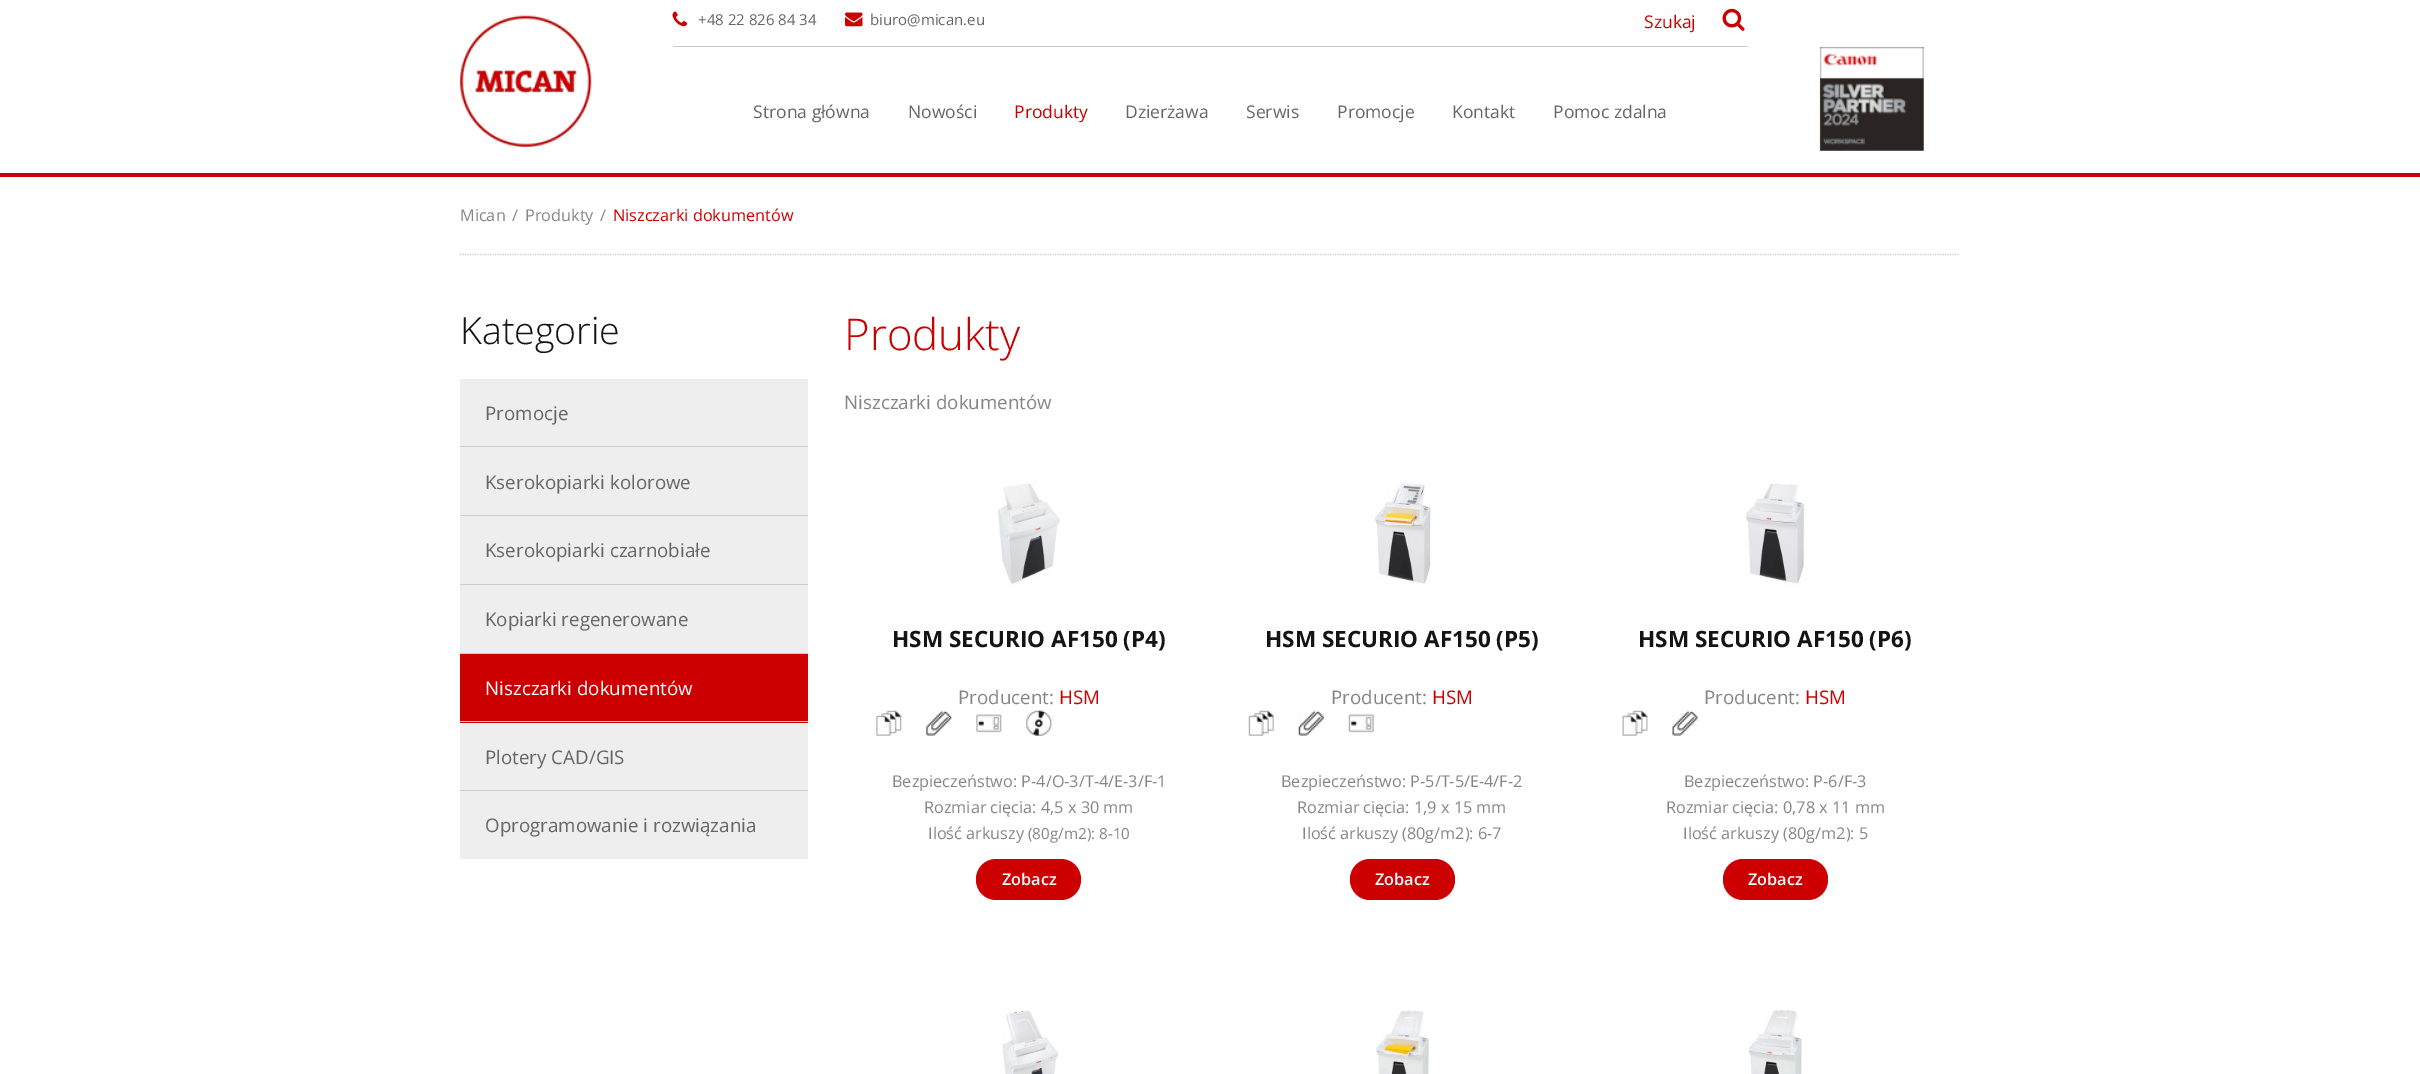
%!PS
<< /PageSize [2420 1074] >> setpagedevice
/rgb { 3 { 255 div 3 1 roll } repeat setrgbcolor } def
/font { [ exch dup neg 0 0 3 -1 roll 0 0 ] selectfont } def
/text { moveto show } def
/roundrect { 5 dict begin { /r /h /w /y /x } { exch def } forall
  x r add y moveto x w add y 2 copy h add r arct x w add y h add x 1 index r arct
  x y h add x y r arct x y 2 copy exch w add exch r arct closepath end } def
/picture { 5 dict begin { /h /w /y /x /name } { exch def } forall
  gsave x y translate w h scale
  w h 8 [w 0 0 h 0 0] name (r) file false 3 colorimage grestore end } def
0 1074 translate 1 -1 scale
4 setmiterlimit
255 255 255 rgb
0 0 2420 1074 rectfill
204 204 204 rgb
673 46 1075 1 rectfill
(img_01.rgb) 672 11 16 16 picture
(img_02.rgb) 845 12 18 15 picture
(img_03.rgb) 1722 8 23 23 picture
204 0 1 rgb
0 173 2420 4 rectfill
(img_04.rgb) 460 15 132 132 picture
(img_05.rgb) 1819 47 105 104 picture
204 204 204 rgb
1.2 setlinewidth
[1.25 1.25] 0 setdash
460 254.5 moveto 1500 0 rlineto stroke
238 238 238 rgb
460 379 348 480 rectfill
204 204 204 rgb
460 446 348 1 rectfill
460 515 348 1 rectfill
460 584 348 1 rectfill
460 653 348 1 rectfill
204 0 1 rgb
460 654 348 69 rectfill
204 204 204 rgb
460 721 348 1 rectfill
460 790 348 1 rectfill
(img_06.rgb) 997 483 63 102 picture
(img_07.rgb) 876 710 26 26 picture
(img_08.rgb) 925 710 27 26 picture
(img_09.rgb) 976 714 26 19 picture
(img_10.rgb) 1026 710 26 26 picture
204 0 1 rgb
976 859 105 41 20 roundrect fill
(img_11.rgb) 1374 483 57 101 picture
(img_12.rgb) 1248 710 26 26 picture
(img_13.rgb) 1298 710 27 26 picture
(img_14.rgb) 1348 714 26 19 picture
1350 859 105 41 20 roundrect fill
(img_15.rgb) 1745 483 60 102 picture
(img_16.rgb) 1622 710 26 26 picture
(img_17.rgb) 1672 710 26 26 picture
1723 859 105 41 20 roundrect fill
(img_18.rgb) 1002 1010 57 64 picture
(img_19.rgb) 1375 1010 54 64 picture
(img_20.rgb) 1748 1009 54 65 picture
/OpenSans-Regular 15 font
102 102 102 rgb
(+48 22 826 84 34) 698 25 text
(biuro@mican.eu) 870 25 text
/OpenSans-Regular 17.5 font
204 0 1 rgb
(Szukaj) 1644 28 text
102 102 102 rgb
(Strona główna) 753 118 text
(Nowości) 908 118 text
204 0 1 rgb
(Produkty) 1014 118 text
102 102 102 rgb
(Dzierżawa) 1125 118 text
(Serwis) 1246 118 text
(Promocje) 1337 118 text
(Kontakt) 1452 118 text
(Pomoc zdalna) 1553 118 text
/OpenSans-Regular 16.25 font
134 134 134 rgb
(Mican) 460 221 text
(/) 512 221 text
(Produkty) 525 221 text
(/) 600 221 text
204 0 1 rgb
(Niszczarki dokumentów) 613 221 text
/OpenSans-Light 37.5 font
20 20 20 rgb
(Kategorie) 460 344 text
/OpenSans-Regular 18.75 font
102 102 102 rgb
(Promocje) 485 420 text
(Kserokopiarki kolorowe) 485 489 text
(Kserokopiarki czarnobiałe) 485 557 text
(Kopiarki regenerowane) 485 626 text
255 255 255 rgb
(Niszczarki dokumentów) 485 695 text
102 102 102 rgb
(Plotery CAD/GIS) 485 764 text
(Oprogramowanie i rozwiązania) 485 832 text
/OpenSans-Light 43.75 font
204 0 1 rgb
(Produkty) 844 350 text
/OpenSans-Regular 18.75 font
134 134 134 rgb
(Niszczarki dokumentów) 844 409 text
/OpenSans-Bold 22.5 font
20 20 20 rgb
(HSM SECURIO AF150 \(P4\)) 892 647 text
/OpenSans-Regular 18.75 font
134 134 134 rgb
(Producent:) 958 704 text
204 0 1 rgb
(HSM) 1059 704 text
/OpenSans-Regular 16.25 font
134 134 134 rgb
(Bezpieczeństwo: P-4/O-3/T-4/E-3/F-1) 892 787 text
(Rozmiar cięcia: 4,5 x 30 mm) 924 813 text
(Ilość arkuszy) 928 839 text
/OpenSans-Regular 15.25 font
(\(80g/m2\): 8-10) 1028 839 text
/OpenSans-SemiBold 16.25 font
255 255 255 rgb
(Zobacz) 1002 885 text
/OpenSans-Bold 22.5 font
20 20 20 rgb
(HSM SECURIO AF150 \(P5\)) 1265 647 text
/OpenSans-Regular 18.75 font
134 134 134 rgb
(Producent:) 1331 704 text
204 0 1 rgb
(HSM) 1432 704 text
/OpenSans-Regular 16.25 font
134 134 134 rgb
(Bezpieczeństwo: P-5/T-5/E-4/F-2) 1281 787 text
(Rozmiar cięcia: 1,9 x 15 mm) 1297 813 text
(Ilość arkuszy \(80g/m2\): 6-7) 1302 839 text
/OpenSans-SemiBold 16.25 font
255 255 255 rgb
(Zobacz) 1375 885 text
/OpenSans-Bold 22.5 font
20 20 20 rgb
(HSM SECURIO AF150 \(P6\)) 1638 647 text
/OpenSans-Regular 18.75 font
134 134 134 rgb
(Producent:) 1704 704 text
204 0 1 rgb
(HSM) 1805 704 text
/OpenSans-Regular 16.25 font
134 134 134 rgb
(Bezpieczeństwo: P-6/F-3) 1684 787 text
(Rozmiar cięcia: 0,78 x 11 mm) 1666 813 text
(Ilość arkuszy \(80g/m2\): 5) 1683 839 text
/OpenSans-SemiBold 16.25 font
255 255 255 rgb
(Zobacz) 1748 885 text
showpage
